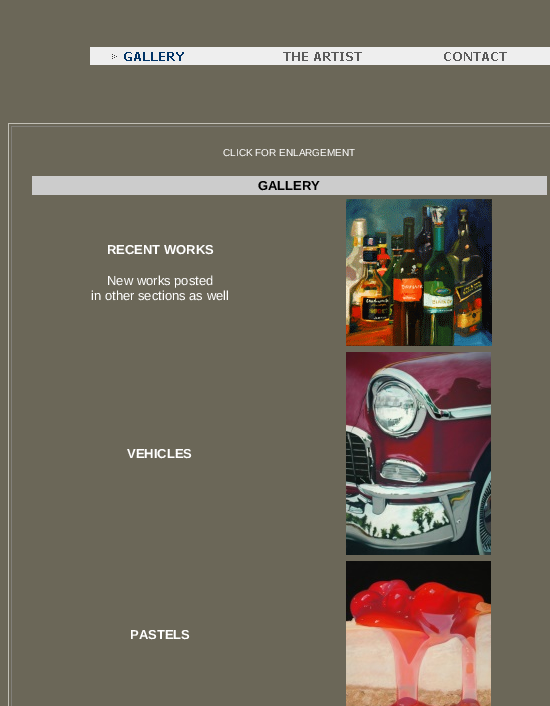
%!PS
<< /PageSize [550 706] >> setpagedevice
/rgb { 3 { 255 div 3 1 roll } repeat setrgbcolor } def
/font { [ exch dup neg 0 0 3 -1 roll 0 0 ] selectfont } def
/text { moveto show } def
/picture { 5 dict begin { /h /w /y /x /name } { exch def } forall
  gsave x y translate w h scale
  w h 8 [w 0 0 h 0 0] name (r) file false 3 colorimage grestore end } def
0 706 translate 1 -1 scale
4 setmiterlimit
107 103 88 rgb
0 0 550 706 rectfill
(img_01.rgb) 90 47 160 18 picture
(img_02.rgb) 250 47 160 18 picture
(img_03.rgb) 410 47 140 18 picture
193 191 181 rgb
8 123 542 1 rectfill
8 123 1 583 rectfill
129 127 121 rgb
11 126 539 1 rectfill
11 126 1 580 rectfill
204 204 204 rgb
32 176 515 19 rectfill
(img_04.rgb) 346 199 146 147 picture
(img_05.rgb) 346 352 145 203 picture
(img_06.rgb) 346 561 145 145 picture
/LiberationSans-Regular 10 font
255 255 255 rgb
(CLICK FOR ENLARGEMENT) 223 156 text
/LiberationSans-Bold 13 font
0 0 0 rgb
(GALLERY) 258 190 text
255 255 255 rgb
(RECENT WORKS) 107 254 text
/LiberationSans-Regular 13 font
(New works posted) 107 285 text
(in other sections as well) 91 300 text
/LiberationSans-Bold 13 font
(VEHICLES) 127 458 text
(PASTELS) 130 639 text
showpage
